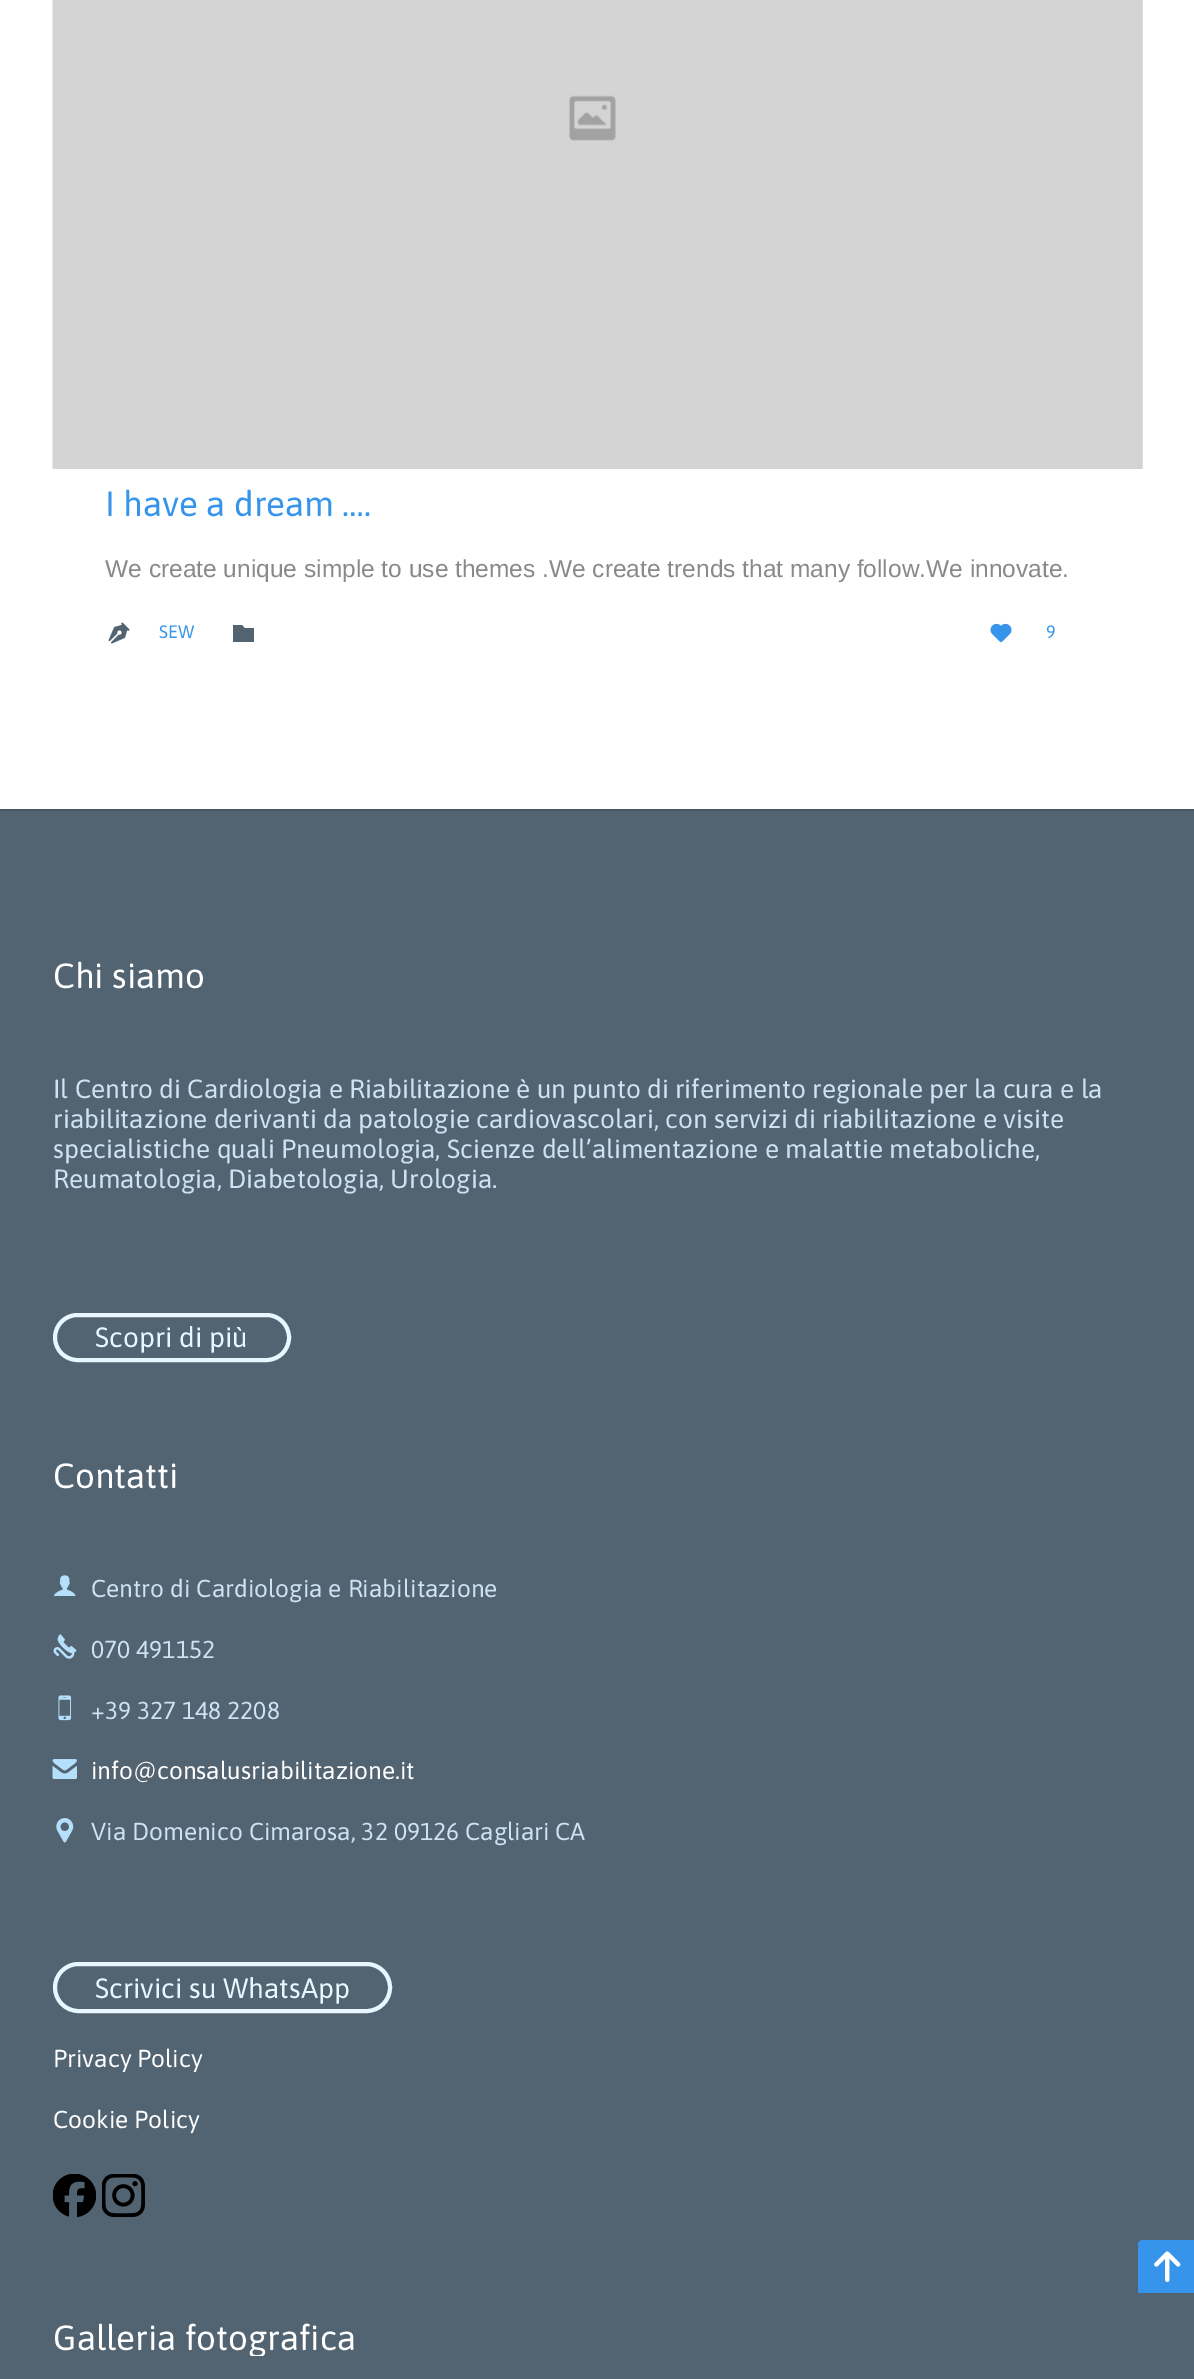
%!PS
<< /PageSize [1194 2379] >> setpagedevice
/rgb { 3 { 255 div 3 1 roll } repeat setrgbcolor } def
/font { [ exch dup neg 0 0 3 -1 roll 0 0 ] selectfont } def
/text { moveto show } def
/roundrect { 5 dict begin { /r /h /w /y /x } { exch def } forall
  x r add y moveto x w add y 2 copy h add r arct x w add y h add x 1 index r arct
  x y h add x y r arct x y 2 copy exch w add exch r arct closepath end } def
/picture { 5 dict begin { /h /w /y /x /name } { exch def } forall
  gsave x y translate w h scale
  w h 8 [w 0 0 h 0 0] name (r) file false 3 colorimage grestore end } def
0 2379 translate 1 -1 scale
4 setmiterlimit
255 255 255 rgb
0 0 1194 2379 rectfill
(img_01.rgb) 52 0 1091 469 picture
(img_02.rgb) 108 622 22 22 picture
82 99 113 rgb
242 625 moveto 2.5 3 rlineto 9.5 0 rlineto 0 14 rlineto -21 0 rlineto 0 -17 rlineto closepath fill
(img_03.rgb) 990 623 22 20 picture
0 811 1194 1568 rectfill
71 86 98 rgb
0 809 1194 2 rectfill
231 246 255 rgb
4 setlinewidth
55 1315 234 45 22.5 roundrect stroke
(img_04.rgb) 54 1575 22 21 picture
(img_05.rgb) 53 1634 24 25 picture
(img_06.rgb) 58 1695 14 26 picture
(img_07.rgb) 52 1759 25 20 picture
(img_08.rgb) 56 1818 18 25 picture
55 1964 335 47 23.5 roundrect stroke
(img_09.rgb) 53 2174 43 43 picture
(img_10.rgb) 102 2174 43 43 picture
54 149 235 rgb
1143 2240 moveto 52 0 rlineto 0 53 rlineto -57 0 rlineto 0 -48 rlineto 0 -3 2 -5 5 -5 rcurveto closepath fill
(img_11.rgb) 1154 2251 27 31 picture
/Asap-Regular 35 font
(I have a dream ….) 105 516 text
/LiberationSans-Regular 24.5 font
137 137 137 rgb
(We create unique simple to use themes .We create trends that many follow.We innovate.) 105 577 text
/Asap-Regular 18 font
54 149 235 rgb
(SEW) 159 638 text
(9) 1046 638 text
/Asap-Regular 35 font
255 255 255 rgb
(Chi siamo) 53 988 text
/Asap-Regular 26.25 font
205 226 244 rgb
(Il Centro di Cardiologia e Riabilitazione è un punto di riferimento regionale per la cura e la) 53 1098 text
(riabilitazione derivanti da patologie cardiovascolari, con servizi di riabilitazione e visite) 53 1128 text
(specialistiche quali Pneumologia, Scienze dell’alimentazione e malattie metaboliche,) 53 1158 text
(Reumatologia, Diabetologia, Urologia.) 53 1188 text
/Asap-Regular 28 font
231 246 255 rgb
(Scopri di più) 95 1347 text
/Asap-Regular 35 font
255 255 255 rgb
(Contatti) 53 1488 text
/Asap-Regular 24.5 font
205 226 244 rgb
(Centro di Cardiologia e Riabilitazione) 91 1597 text
(070 491152) 91 1658 text
(+39 327 148 2208) 91 1719 text
255 255 255 rgb
(info@consalusriabilitazione.it) 91 1779 text
205 226 244 rgb
(Via Domenico Cimarosa, 32 09126 Cagliari CA) 91 1840 text
/Asap-Regular 28 font
231 246 255 rgb
(Scrivici su WhatsApp) 95 1998 text
/Asap-Regular 24.5 font
255 255 255 rgb
(Privacy Policy) 53 2067 text
(Cookie Policy) 53 2128 text
gsave
53 2277 1090 79 rectclip
/Asap-Regular 35 font
(Galleria fotografica) 53 2350 text
grestore
showpage
